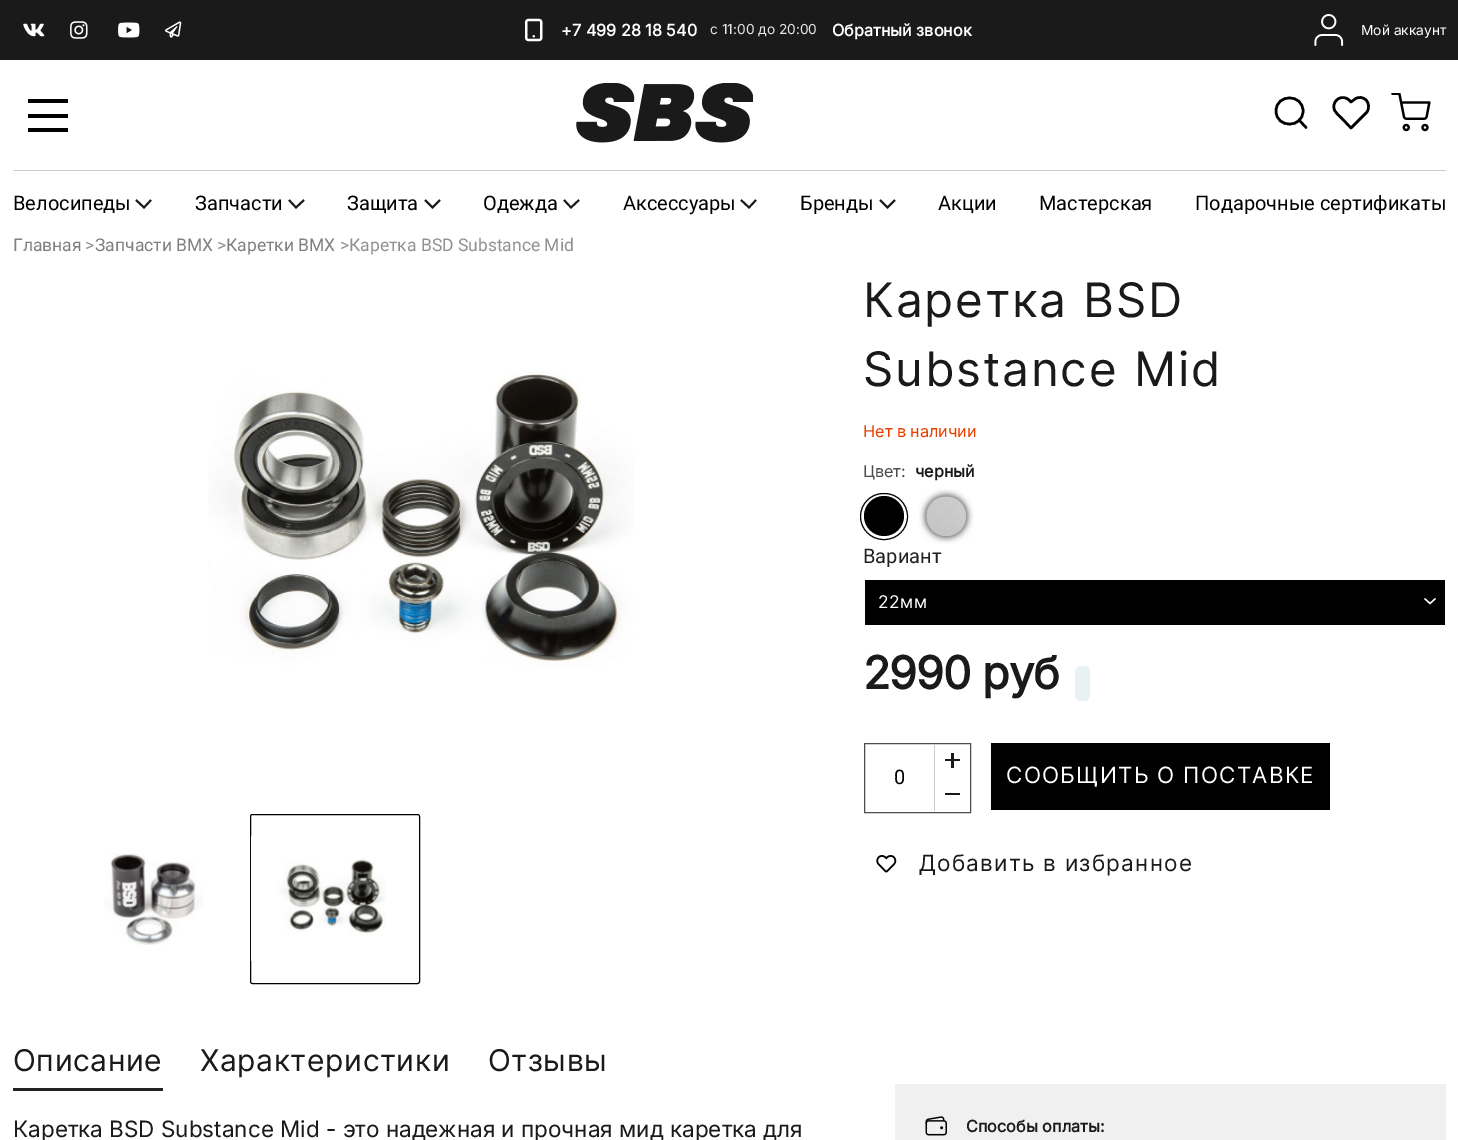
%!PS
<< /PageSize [1458 1140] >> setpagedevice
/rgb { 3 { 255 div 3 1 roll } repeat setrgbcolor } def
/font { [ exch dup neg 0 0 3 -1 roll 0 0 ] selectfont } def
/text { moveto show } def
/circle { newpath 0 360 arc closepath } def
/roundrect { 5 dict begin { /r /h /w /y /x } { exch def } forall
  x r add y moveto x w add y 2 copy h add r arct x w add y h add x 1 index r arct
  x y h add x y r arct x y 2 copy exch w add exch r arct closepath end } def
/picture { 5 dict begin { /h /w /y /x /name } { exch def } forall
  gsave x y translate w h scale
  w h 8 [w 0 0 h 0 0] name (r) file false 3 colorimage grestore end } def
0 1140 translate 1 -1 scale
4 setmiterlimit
255 255 255 rgb
0 0 1458 1140 rectfill
26 26 26 rgb
0 0 1458 60 rectfill
(img_01.rgb) 23 23 22 14 picture
(img_02.rgb) 70 21 18 18 picture
(img_03.rgb) 118 22 22 16 picture
(img_04.rgb) 165 21 17 17 picture
(img_05.rgb) 525 18 18 24 picture
(img_06.rgb) 1314 14 30 32 picture
0 0 0 rgb
28 114 40 4 rectfill
28 99 40 4 rectfill
28 128 40 4 rectfill
(img_07.rgb) 576 83 177 60 picture
2.5 setlinewidth
1 setlinecap
1 setlinejoin
1306 127.5 moveto -7 -7.5 rlineto 1303 111 moveto 0 17.5 -27 17.5 -27 0 rcurveto 0 -17.5 27 -17.5 27 0 rcurveto closepath stroke
1366 100 moveto -3 -3 -7.5 -3.5 -11 -1 rcurveto -4 3 rlineto -1.5 -1.5 -3 -3.5 -5.5 -4 rcurveto -7 -2.5 -14 5 -11 12 rcurveto 1.5 3.5 4.5 5.5 7 8 rcurveto 9.5 10 rlineto 16 -16 rlineto 2.5 -4 2 -9 -1 -12 rcurveto closepath stroke
(img_08.rgb) 1391 93 40 39 picture
204 204 204 rgb
13 170 1433 1 rectfill
26 26 26 rgb
1.9 setlinewidth
0 setlinecap
0 setlinejoin
136 200 moveto 8 7.5 rlineto 7 -7.5 rlineto stroke
289 200 moveto 7 7.5 rlineto 8 -7.5 rlineto stroke
425 200 moveto 7.5 7.5 rlineto 7.5 -7.5 rlineto stroke
564 200 moveto 7 7.5 rlineto 8 -7.5 rlineto stroke
741 200 moveto 8 7.5 rlineto 7 -7.5 rlineto stroke
880 200 moveto 7.5 7.5 rlineto 7.5 -7.5 rlineto stroke
(img_09.rgb) 208 370 426 296 picture
(img_10.rgb) 104 853 100 92 picture
0 0 0 rgb
1 setlinewidth
250.5 814.5 169 169 2 roundrect stroke
(img_11.rgb) 250 836 136 125 picture
884 516 20 circle fill
860.5 493.5 47 46 23 roundrect stroke
(img_12.rgb) 919 489 55 55 picture
865 580 580 45 rectfill
255 255 255 rgb
1.3 setlinewidth
1424.5 598.5 moveto 5.5 5 rlineto 5.5 -5 rlineto stroke
233 242 243 rgb
1075 666 15 35 6 roundrect fill
77 77 77 rgb
1 setlinewidth
864.5 743.5 106 69 rectstroke
204 204 204 rgb
934 744 1 67 rectfill
26 26 26 rgb
951 753 3 15 rectfill
945 759 15 2 rectfill
945 793 15 2 rectfill
0 0 0 rgb
991 743 339 67 rectfill
(img_13.rgb) 876 855 21 18 picture
34 34 34 rgb
13 1088 150 3 rectfill
240 240 240 rgb
895 1084 551 56 rectfill
(img_14.rgb) 925 1116 22 20 picture
/Inter-Bold 16.25 font
255 255 255 rgb
(+7 499 28 18 540) 561 36 text
/Inter-Regular 13.75 font
230 230 230 rgb
(с 11:00 до 20:00) 710 34 text
/Inter-Bold 16.25 font
255 255 255 rgb
(Обратный звонок) 832 36 text
/Inter-Regular 13.75 font
(Мой аккаунт) 1361 35 text
/Roboto-Regular 20 font
0 0 0 rgb
(Велосипеды) 13 210 text
(Запчасти) 195 210 text
(Защита) 347 210 text
(Одежда) 483 210 text
(Аксессуары) 623 210 text
(Бренды) 800 210 text
(Акции) 938 210 text
(Мастерская) 1039 210 text
(Подарочные сертификаты) 1195 210 text
/Roboto-Regular 17.5 font
128 128 128 rgb
(Главная) 13 251 text
145 145 145 rgb
(>) 85 251 text
128 128 128 rgb
(Запчасти BMX) 95 251 text
145 145 145 rgb
(>) 217 251 text
128 128 128 rgb
(Каретки BMX) 226 251 text
145 145 145 rgb
(>Каретка BSD Substance Mid) 340 251 text
/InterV-Regular 47.5 font
26 26 26 rgb
863 317 moveto 1.9 0 (Каретка BSD) ashow
863 386 moveto 1.9 0 (Substance Mid) ashow
/Inter-Regular 16.25 font
233 64 0 rgb
(Нет в наличии) 863 437 text
77 77 77 rgb
(Цвет:) 863 477 text
/Inter-Bold 16.25 font
26 26 26 rgb
(черный) 915 477 text
/Roboto-Regular 20 font
34 34 34 rgb
(Вариант) 863 563 text
/InterV-Regular 17.5 font
255 255 255 rgb
878 608 moveto 0.6 0 (22мм) ashow
/Inter-Bold 45 font
26 26 26 rgb
863 689 moveto -1 0 (2990 руб) ashow
/Roboto-Regular 20 font
0 0 0 rgb
(0) 894 784 text
/InterV-Regular 22.5 font
255 255 255 rgb
1006 783 moveto 1.25 0 (CООБЩИТЬ О ПОСТАВКЕ) ashow
26 26 26 rgb
919 871 moveto 1.25 0 (Добавить в избранное) ashow
/InterV-Regular 30 font
13 1071 moveto 0.6 0 (Описание) ashow
200 1071 moveto 0.6 0 (Характеристики) ashow
488 1071 moveto 0.6 0 (Отзывы) ashow
/Inter-Regular 22.5 font
(Каретка BSD Substance Mid - это надежная и прочная мид каретка для) 13 1137 text
/Inter-Bold 16.25 font
(Способы оплаты:) 966 1132 text
showpage
